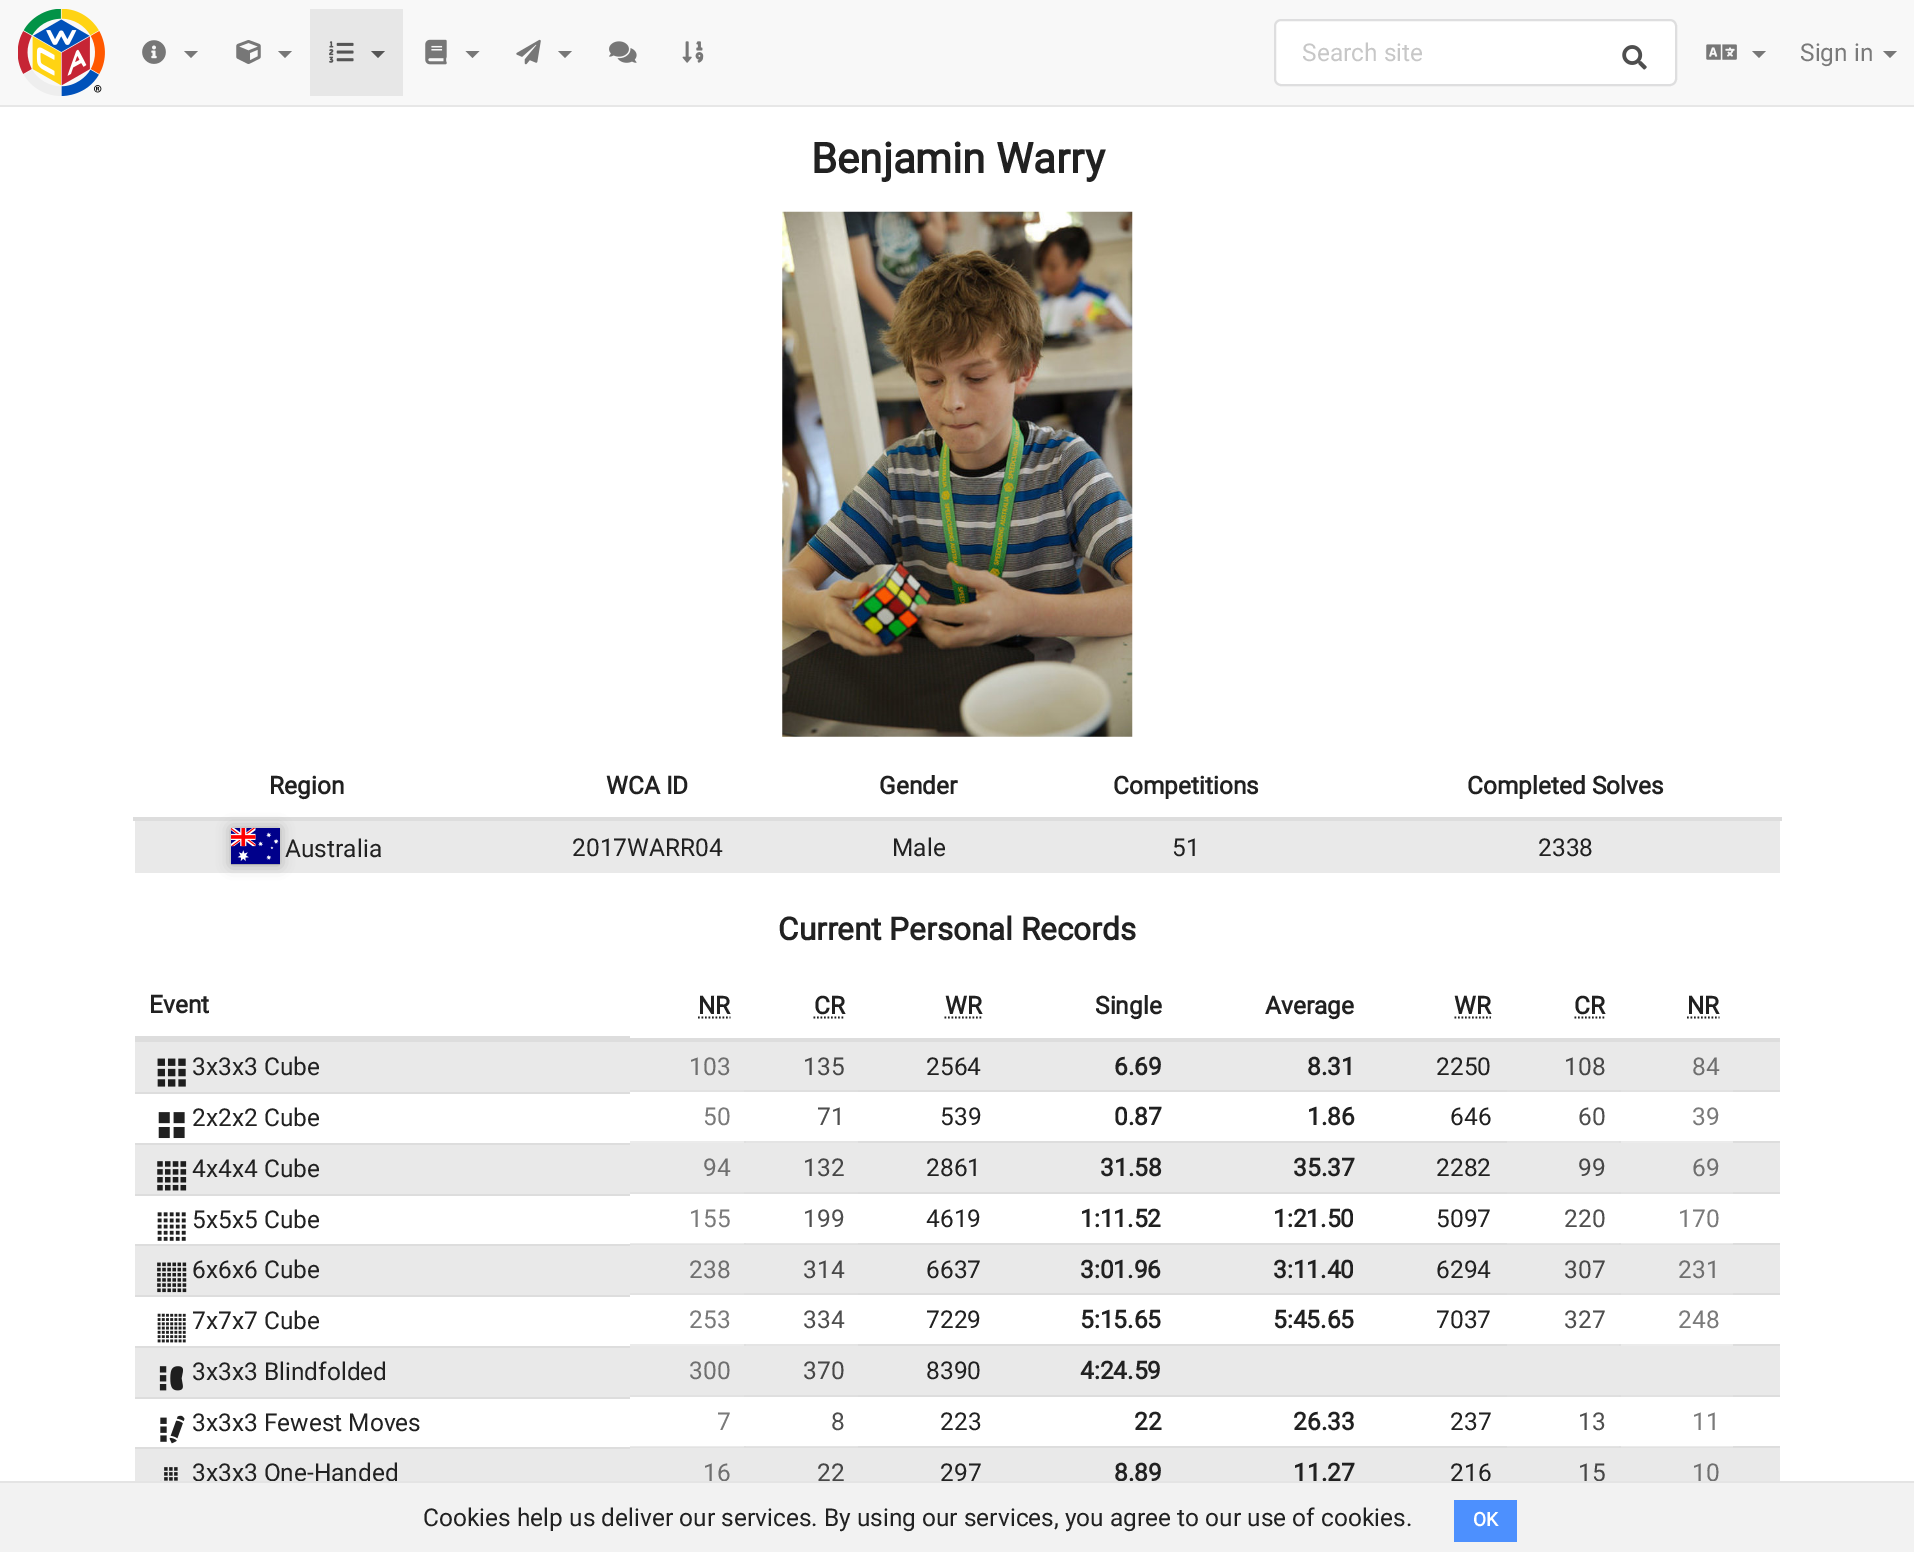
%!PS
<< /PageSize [1914 1552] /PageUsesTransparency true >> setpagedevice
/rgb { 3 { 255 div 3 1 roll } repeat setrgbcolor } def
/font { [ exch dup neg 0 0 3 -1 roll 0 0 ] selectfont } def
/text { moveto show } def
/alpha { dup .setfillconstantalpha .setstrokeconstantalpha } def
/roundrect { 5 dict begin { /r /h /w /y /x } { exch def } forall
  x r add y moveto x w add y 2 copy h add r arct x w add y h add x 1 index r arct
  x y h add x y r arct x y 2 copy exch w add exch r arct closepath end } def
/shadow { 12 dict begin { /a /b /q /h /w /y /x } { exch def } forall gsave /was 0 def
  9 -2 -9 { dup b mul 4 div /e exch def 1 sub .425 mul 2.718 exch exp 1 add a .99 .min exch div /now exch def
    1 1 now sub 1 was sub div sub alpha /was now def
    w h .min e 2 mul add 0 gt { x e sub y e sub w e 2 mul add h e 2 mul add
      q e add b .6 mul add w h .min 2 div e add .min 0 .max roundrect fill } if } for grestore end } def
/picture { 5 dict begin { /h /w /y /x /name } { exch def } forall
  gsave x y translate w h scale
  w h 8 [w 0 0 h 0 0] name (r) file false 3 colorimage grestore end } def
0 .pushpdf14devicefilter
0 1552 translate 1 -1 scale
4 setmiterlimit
255 255 255 rgb
0 0 1914 1552 rectfill
235 235 235 rgb
630 1141 116 2 rectfill
228 228 228 rgb
744 1141 115 2 rectfill
224 224 224 rgb
744 1141 2 2 rectfill
228 228 228 rgb
1505 1141 116 2 rectfill
235 235 235 rgb
1619 1141 115 2 rectfill
224 224 224 rgb
1619 1141 2 2 rectfill
235 235 235 rgb
630 1243 116 1 rectfill
228 228 228 rgb
744 1243 115 1 rectfill
224 224 224 rgb
744 1243 2 1 rectfill
228 228 228 rgb
1505 1243 116 1 rectfill
235 235 235 rgb
1619 1243 115 1 rectfill
224 224 224 rgb
1619 1243 2 1 rectfill
235 235 235 rgb
630 1344 116 2 rectfill
228 228 228 rgb
744 1344 115 2 rectfill
224 224 224 rgb
744 1344 2 2 rectfill
228 228 228 rgb
1505 1344 116 2 rectfill
235 235 235 rgb
1619 1344 115 2 rectfill
224 224 224 rgb
1619 1344 2 2 rectfill
235 235 235 rgb
630 1446 116 1 rectfill
228 228 228 rgb
744 1446 115 1 rectfill
224 224 224 rgb
744 1446 2 1 rectfill
228 228 228 rgb
1505 1446 116 1 rectfill
235 235 235 rgb
1619 1446 115 1 rectfill
224 224 224 rgb
1619 1446 2 1 rectfill
248 248 248 rgb
0 0 1914 105 rectfill
231 231 231 rgb
0 105 1914 2 rectfill
(img_01.rgb) 18 9 87 87 picture
(img_02.rgb) 142 40 24 24 picture
119 119 119 rgb
184 51 moveto 14 0 rlineto -7 7 rlineto closepath fill
(img_03.rgb) 236 40 25 24 picture
278 51 moveto 14 0 rlineto -7 7 rlineto closepath fill
231 231 231 rgb
310 9 93 87 rectfill
(img_04.rgb) 329 41 25 22 picture
85 85 85 rgb
371 51 moveto 14 0 rlineto -7 7 rlineto closepath fill
(img_05.rgb) 425 39 22 26 picture
119 119 119 rgb
465.5 51 moveto 14 0 rlineto -7 7 rlineto closepath fill
(img_06.rgb) 516 39 25 26 picture
558 51 moveto 14 0 rlineto -7 7 rlineto closepath fill
(img_07.rgb) 609 41 28 22 picture
(img_08.rgb) 682 41 22 22 picture
255 255 255 rgb
1274 19 403 67 7 roundrect fill
0.15 alpha
34 36 38 rgb
2 setlinewidth
1275 20 401 65 6 roundrect stroke
1 alpha
(img_09.rgb) 1622 45 25 25 picture
(img_10.rgb) 1706 44 31 16 picture
119 119 119 rgb
1752 51 moveto 14 0 rlineto -7 7 rlineto closepath fill
1883 51 moveto 14 0 rlineto -7 7 rlineto closepath fill
(img_11.rgb) 782 211 351 526 picture
221 221 221 rgb
133 817 1649 4 rectfill
233 233 233 rgb
135 821 1645 52 rectfill
34 34 34 rgb
231 828 49 37 0 7 0.3 shadow
0.2 alpha
231 864 49 1 rectfill
1 alpha
(img_12.rgb) 231 828 49 36 picture
221 221 221 rgb
135 1036 495 6 rectfill
33 33 33 rgb
1.8 setlinewidth
[1.75 1.75] 0 setdash
698 1017.5 moveto 32.5 0 rlineto stroke
813.5 1017.5 moveto 31 0 rlineto stroke
944.5 1017.5 moveto 37 0 rlineto stroke
1454.5 1017.5 moveto 36.5 0 rlineto stroke
1574.5 1017.5 moveto 31 0 rlineto stroke
1687 1017.5 moveto 32.5 0 rlineto stroke
221 221 221 rgb
628 1038 1152 4 rectfill
233 233 233 rgb
135 1042 1645 50 rectfill
226 226 226 rgb
630 1090 116 2 rectfill
223 223 223 rgb
744 1090 115 2 rectfill
1505 1090 116 2 rectfill
226 226 226 rgb
1619 1090 115 2 rectfill
222 222 222 rgb
1619 1090 2 2 rectfill
(img_13.rgb) 157 1058 29 29 picture
221 221 221 rgb
1733 1090 47 2 rectfill
135 1092 495 2 rectfill
(img_14.rgb) 158 1112 27 27 picture
858 1090 649 2 rectfill
233 233 233 rgb
135 1143 1645 51 rectfill
226 226 226 rgb
630 1192 116 2 rectfill
223 223 223 rgb
744 1192 115 2 rectfill
1505 1192 116 2 rectfill
226 226 226 rgb
1619 1192 115 2 rectfill
222 222 222 rgb
1619 1192 2 2 rectfill
221 221 221 rgb
1733 1141 47 2 rectfill
135 1143 495 2 rectfill
(img_15.rgb) 157 1161 30 30 picture
858 1141 649 2 rectfill
1733 1192 47 2 rectfill
135 1194 495 2 rectfill
(img_16.rgb) 157 1212 29 29 picture
858 1192 649 2 rectfill
233 233 233 rgb
135 1245 1645 50 rectfill
226 226 226 rgb
630 1244 116 1 rectfill
223 223 223 rgb
744 1244 115 1 rectfill
1505 1244 116 1 rectfill
226 226 226 rgb
1619 1244 115 1 rectfill
222 222 222 rgb
1619 1244 2 1 rectfill
226 226 226 rgb
630 1293 116 2 rectfill
223 223 223 rgb
744 1293 115 2 rectfill
1505 1293 116 2 rectfill
226 226 226 rgb
1619 1293 115 2 rectfill
222 222 222 rgb
1619 1293 2 2 rectfill
221 221 221 rgb
1733 1243 47 2 rectfill
135 1244 495 2 rectfill
(img_17.rgb) 157 1262 30 31 picture
858 1243 649 2 rectfill
1733 1293 47 2 rectfill
135 1295 495 2 rectfill
(img_18.rgb) 157 1313 29 30 picture
858 1293 649 2 rectfill
233 233 233 rgb
135 1346 1645 51 rectfill
226 226 226 rgb
630 1395 116 2 rectfill
223 223 223 rgb
744 1395 115 2 rectfill
1505 1395 116 2 rectfill
226 226 226 rgb
1619 1395 115 2 rectfill
222 222 222 rgb
1619 1395 2 2 rectfill
221 221 221 rgb
858 1344 649 2 rectfill
1733 1344 47 2 rectfill
135 1346 495 2 rectfill
(img_19.rgb) 159 1366 24 25 picture
1733 1395 47 2 rectfill
135 1397 495 2 rectfill
(img_20.rgb) 160 1415 25 29 picture
858 1395 649 2 rectfill
233 233 233 rgb
135 1448 1645 33 rectfill
226 226 226 rgb
630 1447 116 1 rectfill
223 223 223 rgb
744 1447 115 1 rectfill
1505 1447 116 1 rectfill
226 226 226 rgb
1619 1447 115 1 rectfill
222 222 222 rgb
1619 1447 2 1 rectfill
221 221 221 rgb
1733 1446 47 2 rectfill
135 1447 495 2 rectfill
(img_21.rgb) 160 1467 18 14 picture
858 1446 649 2 rectfill
242 242 242 rgb
0 1483 1914 69 rectfill
77 144 254 rgb
1454 1500 63 42 rectfill
/Roboto-Regular 24.5 font
199 199 199 rgb
(Search site) 1302 61 text
122 122 122 rgb
(Sign in) 1800 61 text
/Roboto-Bold 42 font
33 33 33 rgb
(Benjamin Warry) 811 173 text
/Roboto-Bold 24.5 font
(Region) 269 794 text
(WCA ID) 606 794 text
(Gender) 879 794 text
(Competitions) 1113 794 text
(Completed Solves) 1467 794 text
/Roboto-Regular 24.5 font
(Australia) 285 857 text
(2017WARR04) 572 856 text
(Male) 892 856 text
(51) 1172 856 text
(2338) 1538 856 text
/Roboto-Bold 31.5 font
(Current Personal Records) 778 940 text
/Roboto-Bold 24.5 font
(Event) 149 1013 text
(NR) 698 1014 text
(CR) 814 1014 text
(WR) 945 1014 text
(Single) 1095 1014 text
(Average) 1265 1014 text
(WR) 1454 1014 text
(CR) 1574 1014 text
(NR) 1687 1014 text
/Roboto-Regular 24.5 font
(3x3x3 Cube) 192 1075 text
111 111 111 rgb
(103) 689 1075 text
71 71 71 rgb
(135) 803 1075 text
33 33 33 rgb
(2564) 926 1075 text
/Roboto-Bold 24.5 font
(6.69) 1114 1075 text
(8.31) 1307 1075 text
/Roboto-Regular 24.5 font
(2250) 1436 1075 text
71 71 71 rgb
(108) 1564 1075 text
111 111 111 rgb
(84) 1692 1075 text
33 33 33 rgb
(2x2x2 Cube) 192 1126 text
122 122 122 rgb
(50) 703 1125 text
78 78 78 rgb
(71) 817 1125 text
33 33 33 rgb
(539) 940 1125 text
/Roboto-Bold 24.5 font
(0.87) 1114 1125 text
(1.86) 1307 1125 text
/Roboto-Regular 24.5 font
(646) 1450 1125 text
78 78 78 rgb
(60) 1578 1125 text
122 122 122 rgb
(39) 1692 1125 text
33 33 33 rgb
(4x4x4 Cube) 192 1177 text
111 111 111 rgb
(94) 703 1176 text
71 71 71 rgb
(132) 803 1176 text
33 33 33 rgb
(2861) 926 1176 text
/Roboto-Bold 24.5 font
(31.58) 1100 1176 text
(35.37) 1293 1176 text
/Roboto-Regular 24.5 font
(2282) 1436 1176 text
71 71 71 rgb
(99) 1578 1176 text
111 111 111 rgb
(69) 1692 1176 text
33 33 33 rgb
(5x5x5 Cube) 192 1228 text
122 122 122 rgb
(155) 689 1227 text
78 78 78 rgb
(199) 803 1227 text
33 33 33 rgb
(4619) 926 1227 text
/Roboto-Bold 24.5 font
(1:11.52) 1080 1227 text
(1:21.50) 1273 1227 text
/Roboto-Regular 24.5 font
(5097) 1436 1227 text
78 78 78 rgb
(220) 1564 1227 text
122 122 122 rgb
(170) 1678 1227 text
33 33 33 rgb
(6x6x6 Cube) 192 1278 text
111 111 111 rgb
(238) 689 1278 text
71 71 71 rgb
(314) 803 1278 text
33 33 33 rgb
(6637) 926 1278 text
/Roboto-Bold 24.5 font
(3:01.96) 1080 1278 text
(3:11.40) 1273 1278 text
/Roboto-Regular 24.5 font
(6294) 1436 1278 text
71 71 71 rgb
(307) 1564 1278 text
111 111 111 rgb
(231) 1678 1278 text
33 33 33 rgb
(7x7x7 Cube) 192 1329 text
122 122 122 rgb
(253) 689 1328 text
78 78 78 rgb
(334) 803 1328 text
33 33 33 rgb
(7229) 926 1328 text
/Roboto-Bold 24.5 font
(5:15.65) 1080 1328 text
(5:45.65) 1273 1328 text
/Roboto-Regular 24.5 font
(7037) 1436 1328 text
78 78 78 rgb
(327) 1564 1328 text
122 122 122 rgb
(248) 1678 1328 text
33 33 33 rgb
(3x3x3 Blindfolded) 192 1380 text
111 111 111 rgb
(300) 689 1379 text
71 71 71 rgb
(370) 803 1379 text
33 33 33 rgb
(8390) 926 1379 text
/Roboto-Bold 24.5 font
(4:24.59) 1080 1379 text
/Roboto-Regular 24.5 font
(3x3x3 Fewest Moves) 192 1431 text
122 122 122 rgb
(7) 717 1430 text
78 78 78 rgb
(8) 831 1430 text
33 33 33 rgb
(223) 940 1430 text
/Roboto-Bold 24.5 font
(22) 1134 1430 text
(26.33) 1293 1430 text
/Roboto-Regular 24.5 font
(237) 1450 1430 text
78 78 78 rgb
(13) 1578 1430 text
122 122 122 rgb
(11) 1692 1430 text
33 33 33 rgb
(3x3x3 One-Handed) 192 1481 text
111 111 111 rgb
(16) 703 1481 text
71 71 71 rgb
(22) 817 1481 text
33 33 33 rgb
(297) 940 1481 text
/Roboto-Bold 24.5 font
(8.89) 1114 1481 text
(11.27) 1293 1481 text
/Roboto-Regular 24.5 font
(216) 1450 1481 text
71 71 71 rgb
(15) 1578 1481 text
111 111 111 rgb
(10) 1692 1481 text
228 228 228 rgb
0 1481 1914 2 rectfill
33 33 33 rgb
(Cookies help us deliver our services. By using our services, you agree to our use of cookies.) 423 1526 text
/Roboto-Bold 19 font
255 255 255 rgb
(OK) 1473 1526 text
.poppdf14devicefilter showpage
